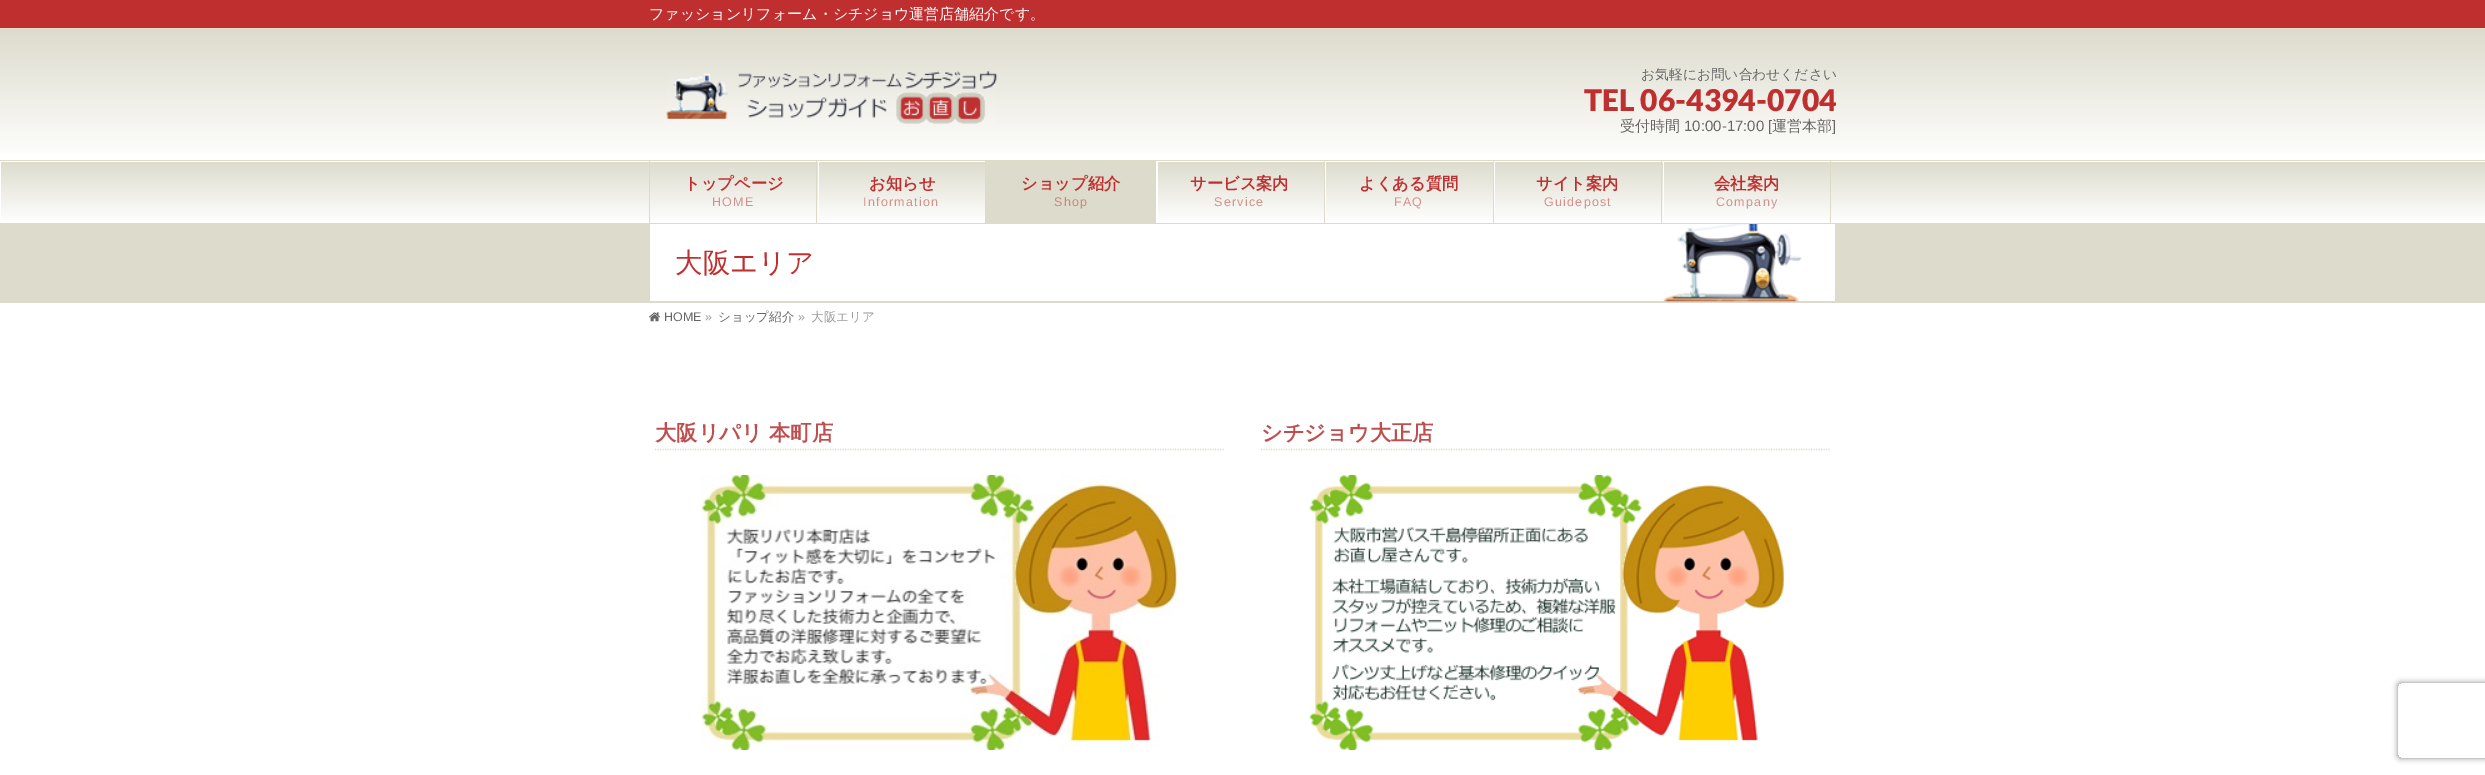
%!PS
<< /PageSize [2485 775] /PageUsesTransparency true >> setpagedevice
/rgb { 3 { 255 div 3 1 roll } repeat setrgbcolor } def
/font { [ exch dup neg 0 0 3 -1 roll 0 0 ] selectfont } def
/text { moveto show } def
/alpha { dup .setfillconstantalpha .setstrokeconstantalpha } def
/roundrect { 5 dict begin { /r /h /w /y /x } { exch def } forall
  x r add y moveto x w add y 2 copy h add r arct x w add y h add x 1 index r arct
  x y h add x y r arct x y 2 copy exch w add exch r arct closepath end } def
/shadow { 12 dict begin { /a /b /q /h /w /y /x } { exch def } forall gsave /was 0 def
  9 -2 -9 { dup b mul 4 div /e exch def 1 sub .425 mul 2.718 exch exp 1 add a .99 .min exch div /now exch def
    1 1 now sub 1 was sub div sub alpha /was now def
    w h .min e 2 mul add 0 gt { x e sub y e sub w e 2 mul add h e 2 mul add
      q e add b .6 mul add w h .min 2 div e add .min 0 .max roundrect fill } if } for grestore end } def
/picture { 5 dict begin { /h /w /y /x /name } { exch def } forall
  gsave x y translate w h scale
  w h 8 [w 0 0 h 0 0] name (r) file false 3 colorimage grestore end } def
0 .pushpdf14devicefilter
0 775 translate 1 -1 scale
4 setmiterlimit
255 255 255 rgb
0 0 2485 775 rectfill
191 47 47 rgb
0 0 2485 28 rectfill
gsave 0 28 moveto 2485 0 rlineto 0 125 rlineto -2485 0 rlineto closepath clip newpath
<< /ShadingType 2 /ColorSpace /DeviceRGB /Coords [1243 27 1243 160] /Extend [true true] /Function << /FunctionType 2 /Domain [0 1] /C0 [0.867 0.859 0.8] /C1 [1 1 1] /N 1 >> >> shfill grestore
(img_01.rgb) 666 71 331 53 picture
gsave 1 162 moveto 2484 0 rlineto 0 58 rlineto -2484 0 rlineto closepath clip newpath
<< /ShadingType 2 /ColorSpace /DeviceRGB /Coords [1243 161 1243 223] /Extend [true true] /Function << /FunctionType 2 /Domain [0 1] /C0 [0.867 0.859 0.8] /C1 [1 1 1] /N 1 >> >> shfill grestore
221 219 199 rgb
0 160 2485 1 rectfill
0 223 2485 1 rectfill
gsave
649 161 169 62 rectclip
255 255 255 rgb
525 38 moveto 416 0 rlineto 0 308 rlineto -416 0 rlineto closepath 650 162 moveto 169 0 rlineto 0 62 rlineto -169 0 rlineto closepath eofill
grestore
816 161 1 62 rectfill
649 161 1 62 rectfill
gsave
818 161 168 62 rectclip
255 255 255 rgb
694 38 moveto 416 0 rlineto 0 308 rlineto -416 0 rlineto closepath 819 162 moveto 169 0 rlineto 0 62 rlineto -169 0 rlineto closepath eofill
grestore
985 161 1 62 rectfill
221 219 204 rgb
986 161 169 62 rectfill
221 219 199 rgb
1155 161 1 62 rectfill
gsave
1156 161 169 62 rectclip
255 255 255 rgb
1032 38 moveto 417 0 rlineto 0 308 rlineto -417 0 rlineto closepath 1158 162 moveto 168 0 rlineto 0 62 rlineto -168 0 rlineto closepath eofill
grestore
1324 161 1 62 rectfill
gsave
1325 161 169 62 rectclip
255 255 255 rgb
1201 38 moveto 417 0 rlineto 0 308 rlineto -417 0 rlineto closepath 1326 162 moveto 169 0 rlineto 0 62 rlineto -169 0 rlineto closepath eofill
grestore
1493 161 1 62 rectfill
gsave
1494 161 169 62 rectclip
255 255 255 rgb
1370 38 moveto 416 0 rlineto 0 308 rlineto -416 0 rlineto closepath 1495 162 moveto 169 0 rlineto 0 62 rlineto -169 0 rlineto closepath eofill
grestore
1661 161 1 62 rectfill
gsave
1663 161 168 62 rectclip
255 255 255 rgb
1539 38 moveto 416 0 rlineto 0 308 rlineto -416 0 rlineto closepath 1664 162 moveto 168 0 rlineto 0 62 rlineto -168 0 rlineto closepath eofill
grestore
1830 161 1 62 rectfill
221 219 204 rgb
0 224 2485 79 rectfill
221 219 199 rgb
0 301 2485 1 rectfill
255 255 255 rgb
650 224 1185 77 rectfill
(img_02.rgb) 1663 224 139 78 picture
221 219 199 rgb
1835 224 1 77 rectfill
649 224 1 77 rectfill
(img_03.rgb) 649 312 12 10 picture
1.2 setlinewidth
[1.25 1.25] 0 setdash
655 449.5 moveto 569 0 rlineto stroke
(img_04.rgb) 701 475 476 275 picture
1261 449.5 moveto 569 0 rlineto stroke
(img_05.rgb) 1308 475 476 275 picture
gsave
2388 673 moveto 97 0 rlineto 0 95 rlineto -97 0 rlineto closepath 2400.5 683 moveto 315 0 rlineto 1.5 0 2.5 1 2.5 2.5 rcurveto 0 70 rlineto 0 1.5 -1 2.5 -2.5 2.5 rcurveto -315 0 rlineto -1.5 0 -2.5 -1 -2.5 -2.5 rcurveto 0 -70 rlineto 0 -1.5 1 -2.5 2.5 -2.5 rcurveto closepath eoclip newpath
128 128 128 rgb
2398 683 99 75 2.5 3 1 shadow
grestore
/WenQuanYiZenHei-Medium 15 font
255 255 255 rgb
(ファッションリフォーム・シチジョウ運営店舗紹介です。) 649 19 text
/WenQuanYiZenHei-Medium 13.75 font
102 102 102 rgb
(お気軽にお問い合わせください) 1641 79 text
/Lato-Black 30 font
191 47 47 rgb
(TEL 06-4394-0704) 1584 111 text
/WenQuanYiZenHei-Medium 15 font
102 102 102 rgb
(受付時間) 1620 131 text
/LiberationSans-Regular 15 font
(10:00-17:00 [) 1684 131 text
/WenQuanYiZenHei-Medium 15 font
(運営本部) 1772 131 text
/LiberationSans-Regular 15 font
(]) 1832 131 text
/WenQuanYiZenHei-Bold 16.25 font
191 47 47 rgb
(トップページ) 684 189 text
/LiberationSans-Regular 12.5 font
212 144 142 rgb
712 206 moveto 1.25 0 (HOME) ashow
/WenQuanYiZenHei-Bold 16.25 font
191 47 47 rgb
(お知らせ) 869 189 text
/LiberationSans-Regular 12.5 font
212 144 142 rgb
863 206 moveto 1.25 0 (Information) ashow
/WenQuanYiZenHei-Bold 16.25 font
191 47 47 rgb
(ショップ紹介) 1021 189 text
/LiberationSans-Regular 12.5 font
203 134 128 rgb
1054 206 moveto 1.25 0 (Shop) ashow
/WenQuanYiZenHei-Bold 16.25 font
191 47 47 rgb
(サービス案内) 1190 189 text
/LiberationSans-Regular 12.5 font
212 144 142 rgb
1214 206 moveto 1.25 0 (Service) ashow
/WenQuanYiZenHei-Bold 16.25 font
191 47 47 rgb
(よくある質問) 1359 189 text
/LiberationSans-Regular 12.5 font
212 144 142 rgb
1394 206 moveto 1.25 0 (FAQ) ashow
/WenQuanYiZenHei-Bold 16.25 font
191 47 47 rgb
(サイト案内) 1536 189 text
/LiberationSans-Regular 12.5 font
212 144 142 rgb
1544 206 moveto 1.25 0 (Guidepost) ashow
/WenQuanYiZenHei-Bold 16.25 font
191 47 47 rgb
(会社案内) 1714 189 text
/LiberationSans-Regular 12.5 font
212 144 142 rgb
1716 206 moveto 1.25 0 (Company) ashow
/WenQuanYiZenHei-Medium 27.5 font
191 47 47 rgb
(大阪エリア) 675 272 text
/LiberationSans-Regular 12.5 font
102 102 102 rgb
(HOME) 664 321 text
153 153 153 rgb
(») 705 321 text
/WenQuanYiZenHei-Medium 12.5 font
102 102 102 rgb
(ショップ紹介) 718 321 text
/LiberationSans-Regular 12.5 font
153 153 153 rgb
(») 798 321 text
/WenQuanYiZenHei-Medium 12.5 font
(大阪エリア) 811 321 text
/WenQuanYiZenHei-Bold 21.25 font
191 78 78 rgb
(大阪リパリ 本町店) 655 440 text
(シチジョウ大正店) 1261 440 text
.poppdf14devicefilter showpage
